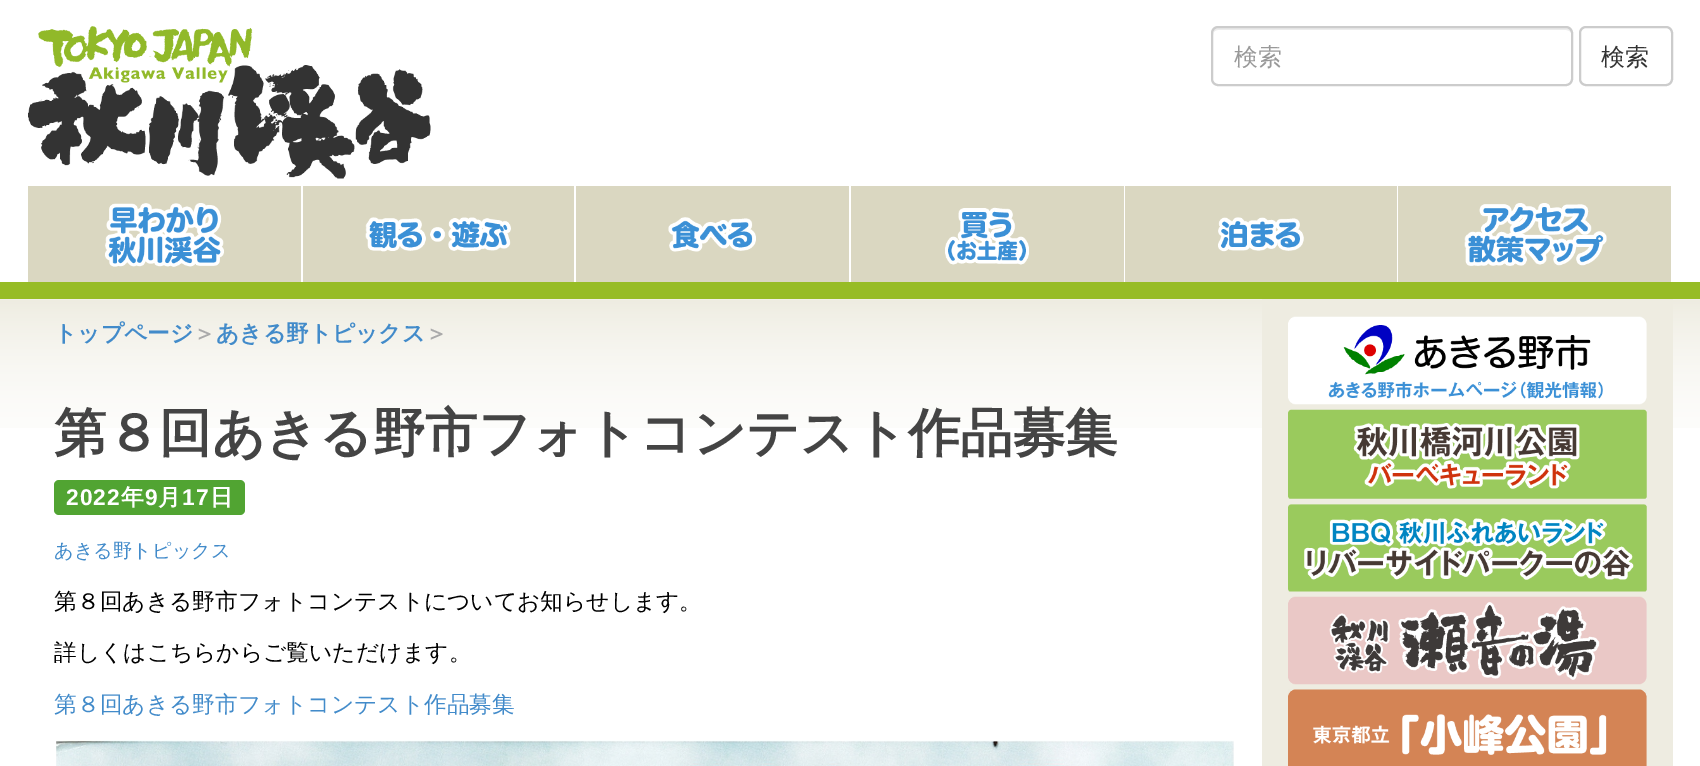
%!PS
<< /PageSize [1700 766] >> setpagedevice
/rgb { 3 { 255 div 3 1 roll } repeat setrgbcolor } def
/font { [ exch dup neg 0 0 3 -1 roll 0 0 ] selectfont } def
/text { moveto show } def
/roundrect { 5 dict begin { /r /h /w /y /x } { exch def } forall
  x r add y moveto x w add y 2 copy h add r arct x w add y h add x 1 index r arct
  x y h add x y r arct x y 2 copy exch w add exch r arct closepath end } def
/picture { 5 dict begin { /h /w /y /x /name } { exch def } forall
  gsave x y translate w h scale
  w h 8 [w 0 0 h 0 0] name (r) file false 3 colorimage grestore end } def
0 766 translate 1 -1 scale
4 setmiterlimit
255 255 255 rgb
0 0 1700 766 rectfill
151 188 38 rgb
0 282 1700 17 rectfill
(img_01.rgb) 28 26 403 153 picture
236 236 236 rgb
1218 30 moveto 348 0 rlineto 3 0 6 2 6 5 rcurveto 0 -3 -1 -7 -5 -7 rcurveto -349 0 rlineto -4 0 -5 4 -5 7 rcurveto 0 -3 2 -5 5 -5 rcurveto closepath fill
204 204 204 rgb
2 setlinewidth
1212 27 360 58 6 roundrect stroke
1580 27 92 58 6 roundrect stroke
218 215 193 rgb
28 186 273 96 rectfill
(img_02.rgb) 105 203 119 64 picture
303 186 271 96 rectfill
(img_03.rgb) 365 217 146 35 picture
576 186 273 96 rectfill
(img_04.rgb) 668 217 88 35 picture
851 186 273 96 rectfill
(img_05.rgb) 945 207 84 58 picture
1125 186 272 96 rectfill
(img_06.rgb) 1218 217 86 35 picture
1398 186 273 96 rectfill
(img_07.rgb) 1464 203 143 63 picture
(img_08.rgb) 0 299 1700 129 picture
81 164 50 rgb
54 480 191 35 5 roundrect fill
(img_09.rgb) 56 740 1178 26 picture
238 236 225 rgb
1262 299 411 467 rectfill
(img_10.rgb) 1288 316 359 89 picture
(img_11.rgb) 1288 409 359 90 picture
(img_12.rgb) 1288 504 359 88 picture
(img_13.rgb) 1288 596 359 89 picture
(img_14.rgb) 1288 689 359 77 picture
/WenQuanYiZenHei-Medium 24 font
153 153 153 rgb
(検索) 1234 65 text
51 51 51 rgb
(検索) 1601 65 text
/WenQuanYiZenHei-Bold 22.75 font
66 139 202 rgb
(トップページ) 54 341 text
170 170 170 rgb
(＞) 193 341 text
66 139 202 rgb
(あきる野トピックス) 216 341 text
170 170 170 rgb
(＞) 425 341 text
/WenQuanYiZenHei-Bold 52.5 font
68 68 68 rgb
(第８回あきる野市フォトコンテスト作品募集) 54 451 text
/LiberationSans-Bold 22.75 font
255 255 255 rgb
66 505 moveto 1 0 (2022) ashow
/WenQuanYiZenHei-Bold 22.75 font
121 505 moveto 1 0 (年) ashow
/LiberationSans-Bold 22.75 font
145 505 moveto 1 0 (9) ashow
/WenQuanYiZenHei-Bold 22.75 font
158 505 moveto 1 0 (月) ashow
/LiberationSans-Bold 22.75 font
182 505 moveto 1 0 (17) ashow
/WenQuanYiZenHei-Bold 22.75 font
210 505 moveto 1 0 (日) ashow
/WenQuanYiZenHei-Medium 19.25 font
66 139 202 rgb
(あきる野トピックス) 54 557 text
/WenQuanYiZenHei-Medium 22.75 font
0 0 0 rgb
(第８回あきる野市フォトコンテストについてお知らせします。) 54 609 text
(詳しくはこちらからご覧いただけます。) 54 660 text
66 139 202 rgb
(第８回あきる野市フォトコンテスト作品募集) 54 712 text
showpage
